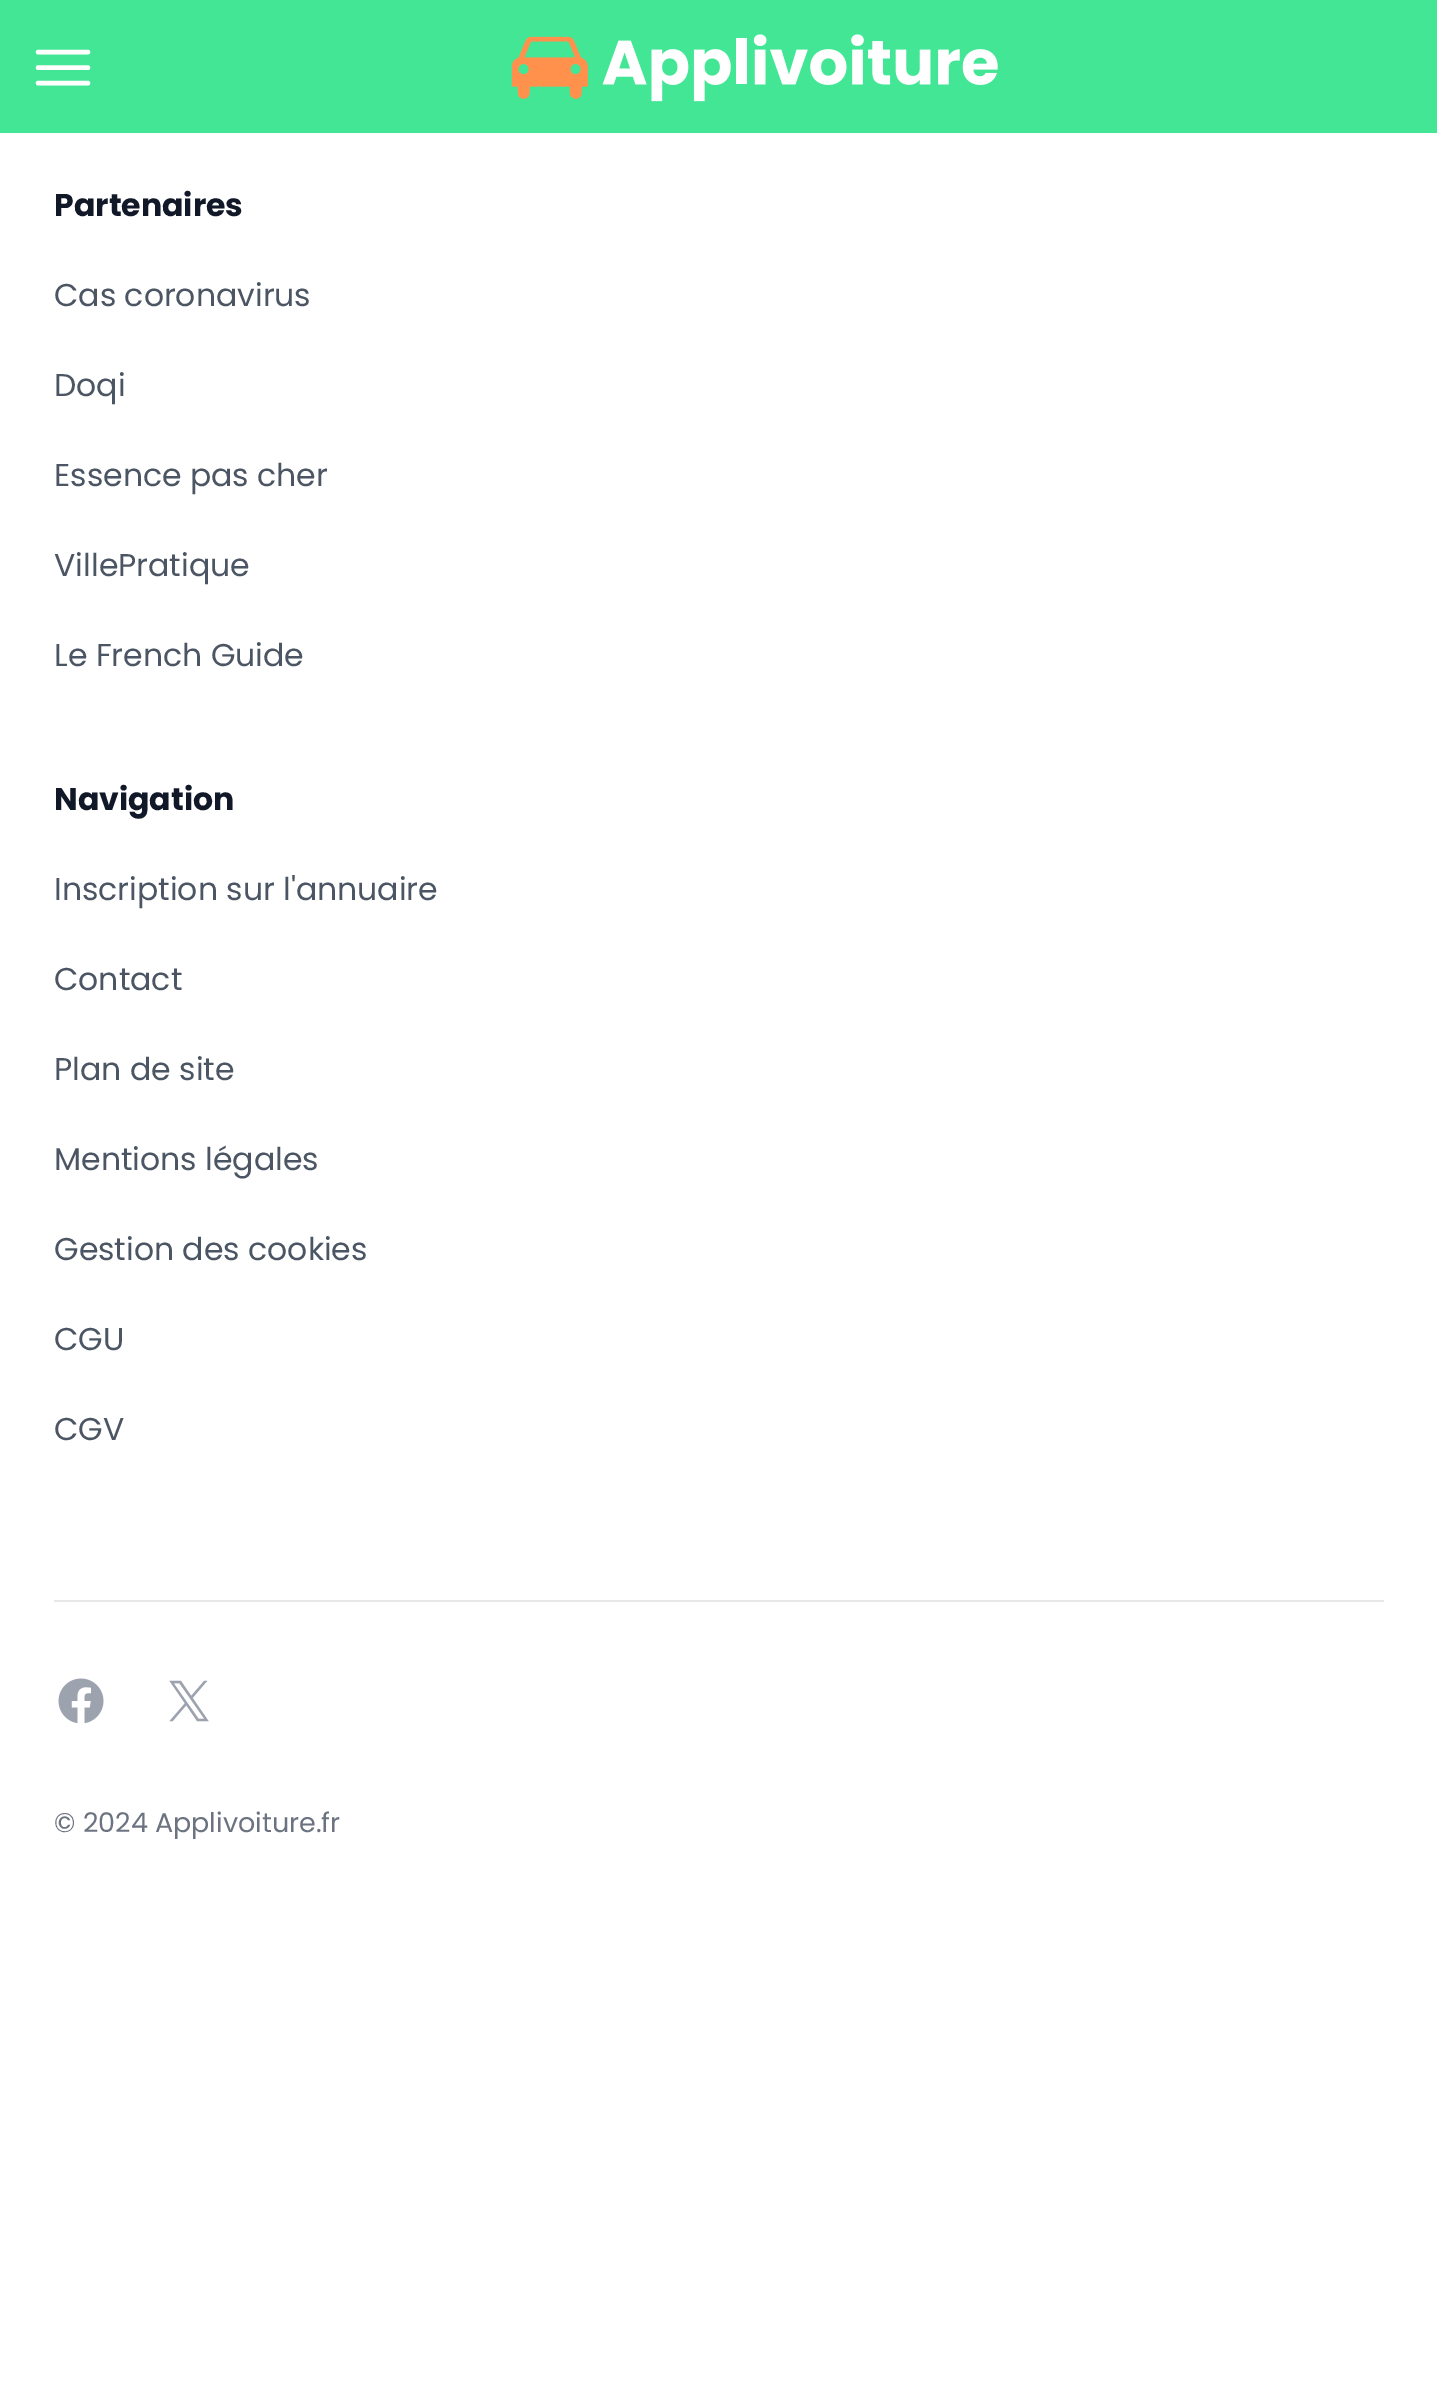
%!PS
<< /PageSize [1437 2384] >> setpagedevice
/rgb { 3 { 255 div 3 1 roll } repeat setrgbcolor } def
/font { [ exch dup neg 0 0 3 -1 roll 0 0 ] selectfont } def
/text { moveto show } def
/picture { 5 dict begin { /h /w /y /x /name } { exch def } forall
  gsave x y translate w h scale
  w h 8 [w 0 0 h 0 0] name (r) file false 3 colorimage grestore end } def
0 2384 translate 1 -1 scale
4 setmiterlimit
255 255 255 rgb
0 0 1437 2384 rectfill
66 230 149 rgb
0 0 1437 133 rectfill
255 255 255 rgb
4.5 setlinewidth
1 setlinecap
1 setlinejoin
38 52 moveto 50 0 rlineto 38 67.5 moveto 50 0 rlineto 38 83 moveto 50 0 rlineto stroke
(img_01.rgb) 511 34 487 68 picture
231 232 233 rgb
54 1600 1330 2 rectfill
(img_02.rgb) 58 1678 46 46 picture
(img_03.rgb) 169 1680 40 42 picture
/Poppins-Bold 31.5 font
17 24 39 rgb
(Partenaires) 54 216 text
/Poppins-Regular 31.5 font
75 85 99 rgb
(Cas coronavirus) 54 306 text
(Doqi) 54 396 text
(Essence pas cher) 54 486 text
(VillePratique) 54 576 text
(Le French Guide) 54 666 text
/Poppins-Bold 31.5 font
17 24 39 rgb
(Navigation) 54 810 text
/Poppins-Regular 31.5 font
75 85 99 rgb
(Inscription sur l'annuaire) 54 900 text
(Contact) 54 990 text
(Plan de site) 54 1080 text
(Mentions légales) 54 1170 text
(Gestion des cookies) 54 1260 text
(CGU) 54 1350 text
(CGV) 54 1440 text
/Poppins-Regular 27 font
107 114 128 rgb
(© 2024 Applivoiture.fr) 54 1832 text
showpage
